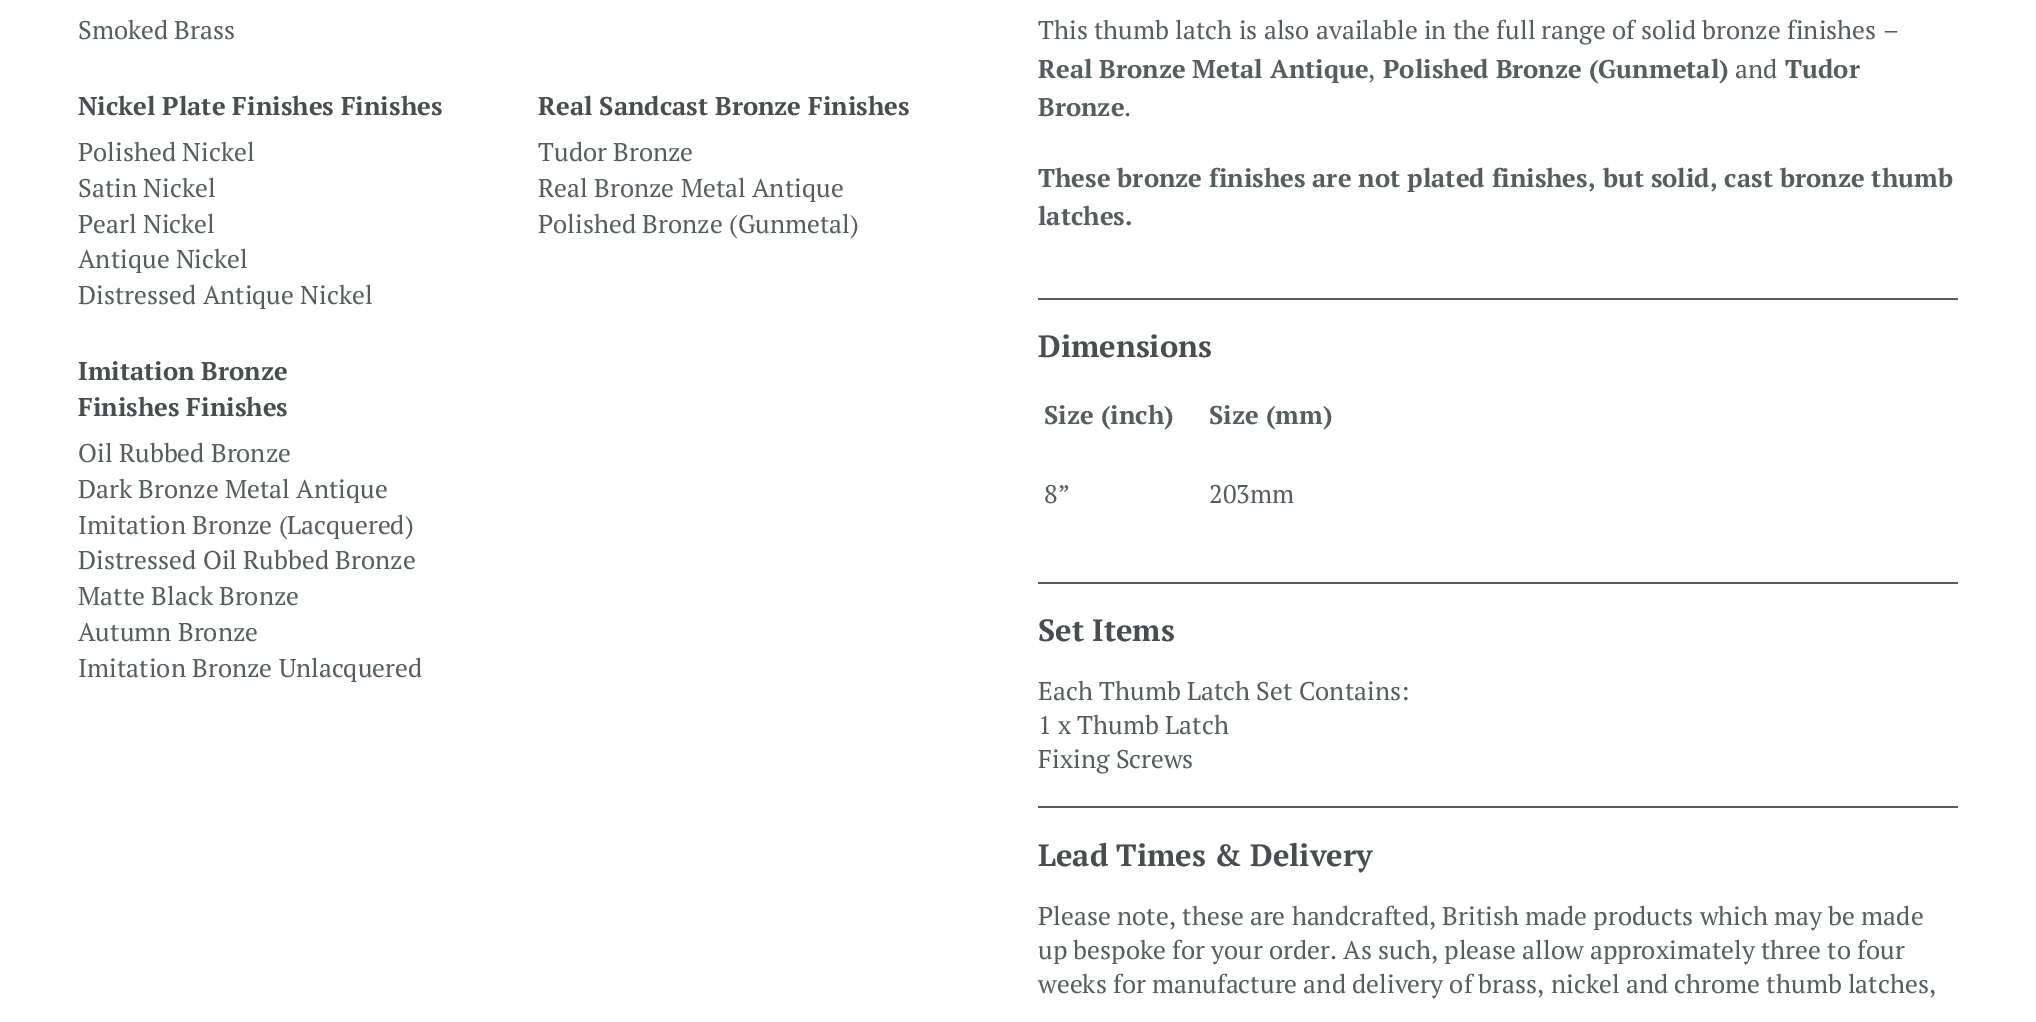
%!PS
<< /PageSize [2036 1022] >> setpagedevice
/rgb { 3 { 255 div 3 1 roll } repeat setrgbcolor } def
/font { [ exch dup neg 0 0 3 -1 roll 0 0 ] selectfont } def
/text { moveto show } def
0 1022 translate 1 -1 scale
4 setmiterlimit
255 255 255 rgb
0 0 2036 1022 rectfill
85 94 94 rgb
1038 298 920 2 rectfill
1038 582 920 2 rectfill
1038 806 920 2 rectfill
/PTSerif-Regular 25.6 font
(Smoked Brass) 78 39 text
/PTSerif-Bold 25.6 font
72 78 80 rgb
(Nickel Plate Finishes Finishes) 78 115 text
/PTSerif-Regular 25.6 font
85 94 94 rgb
(Polished Nickel) 78 161 text
(Satin Nickel) 78 197 text
(Pearl Nickel) 78 233 text
(Antique Nickel) 78 268 text
(Distressed Antique Nickel) 78 304 text
/PTSerif-Bold 25.6 font
72 78 80 rgb
(Real Sandcast Bronze Finishes) 538 115 text
/PTSerif-Regular 25.6 font
85 94 94 rgb
(Tudor Bronze) 538 161 text
(Real Bronze Metal Antique) 538 197 text
(Polished Bronze \(Gunmetal\)) 538 233 text
/PTSerif-Bold 25.6 font
72 78 80 rgb
(Imitation Bronze) 78 380 text
(Finishes Finishes) 78 416 text
/PTSerif-Regular 25.6 font
85 94 94 rgb
(Oil Rubbed Bronze) 78 462 text
(Dark Bronze Metal Antique) 78 498 text
(Imitation Bronze \(Lacquered\)) 78 534 text
(Distressed Oil Rubbed Bronze) 78 569 text
(Matte Black Bronze) 78 605 text
(Autumn Bronze) 78 641 text
(Imitation Bronze Unlacquered) 78 677 text
(This thumb latch is also available in the full range of solid bronze finishes –) 1038 39 text
/PTSerif-Bold 25.6 font
(Real Bronze Metal Antique) 1038 78 text
/PTSerif-Regular 25.6 font
(,) 1368 78 text
/PTSerif-Bold 25.6 font
(Polished Bronze \(Gunmetal\)) 1383 78 text
/PTSerif-Regular 25.6 font
(and) 1735 78 text
/PTSerif-Bold 25.6 font
(Tudor) 1785 78 text
(Bronze) 1038 116 text
/PTSerif-Regular 25.6 font
(.) 1124 116 text
/PTSerif-Bold 25.6 font
(These bronze finishes are not plated finishes, but solid, cast bronze thumb) 1038 187 text
(latches.) 1038 225 text
/PTSerif-Bold 30.75 font
72 78 80 rgb
(Dimensions) 1038 357 text
/PTSerif-Bold 25.6 font
85 94 94 rgb
(Size \(inch\)) 1044 424 text
(Size \(mm\)) 1209 424 text
/PTSerif-Regular 25.6 font
(8”) 1044 503 text
(203mm) 1209 503 text
/PTSerif-Bold 30.75 font
72 78 80 rgb
(Set Items) 1038 641 text
/PTSerif-Regular 25.6 font
85 94 94 rgb
(Each Thumb Latch Set Contains:) 1038 700 text
(1 x Thumb Latch) 1038 734 text
(Fixing Screws) 1038 768 text
/PTSerif-Bold 30.75 font
72 78 80 rgb
(Lead Times & Delivery) 1038 866 text
/PTSerif-Regular 25.6 font
85 94 94 rgb
(Please note, these are handcrafted, British made products which may be made) 1038 925 text
(up bespoke for your order. As such, please allow approximately three to four) 1038 959 text
(weeks for manufacture and delivery of brass, nickel and chrome thumb latches,) 1038 993 text
showpage
